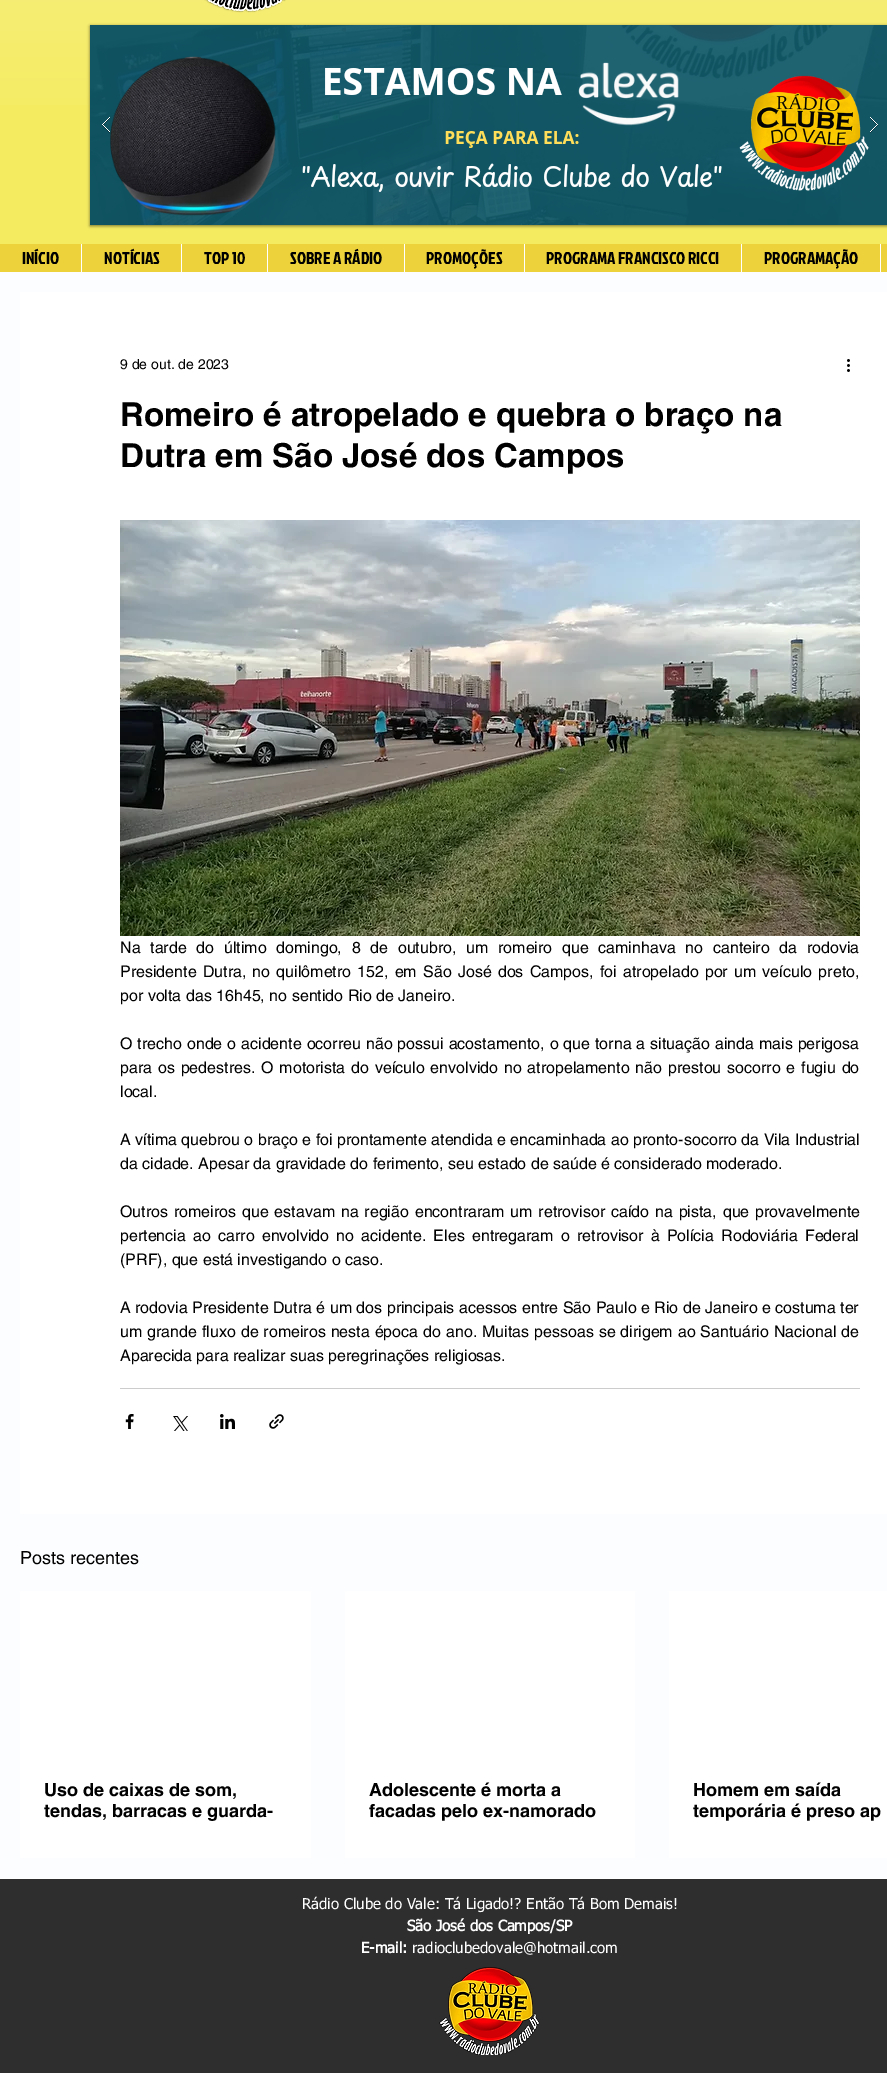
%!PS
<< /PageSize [887 2073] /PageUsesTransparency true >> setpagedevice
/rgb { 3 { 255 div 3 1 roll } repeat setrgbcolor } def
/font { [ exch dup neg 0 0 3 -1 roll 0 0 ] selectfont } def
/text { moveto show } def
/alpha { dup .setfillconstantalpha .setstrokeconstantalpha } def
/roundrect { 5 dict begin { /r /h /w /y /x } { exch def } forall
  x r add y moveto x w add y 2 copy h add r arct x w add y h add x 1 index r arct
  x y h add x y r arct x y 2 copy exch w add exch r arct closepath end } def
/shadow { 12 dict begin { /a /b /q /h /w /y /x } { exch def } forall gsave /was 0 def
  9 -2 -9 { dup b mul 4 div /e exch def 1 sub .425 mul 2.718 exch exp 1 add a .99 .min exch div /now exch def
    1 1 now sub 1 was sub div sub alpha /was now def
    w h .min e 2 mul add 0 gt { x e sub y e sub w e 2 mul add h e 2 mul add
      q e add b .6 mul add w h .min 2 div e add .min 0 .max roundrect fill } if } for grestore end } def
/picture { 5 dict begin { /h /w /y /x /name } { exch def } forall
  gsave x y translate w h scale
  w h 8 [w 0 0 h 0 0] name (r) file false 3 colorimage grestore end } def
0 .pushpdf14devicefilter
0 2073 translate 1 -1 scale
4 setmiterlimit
255 255 255 rgb
0 0 887 2073 rectfill
244 235 97 rgb
0 0 887 244 rectfill
(img_01.rgb) 0 0 887 105 picture
(img_02.rgb) 204 0 82 13 picture
0 0 0 rgb
90 26 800 200 0 1.5 0.5 shadow
(img_03.rgb) 90 25 797 200 picture
(img_04.rgb) 102 117 8 16 picture
(img_05.rgb) 870 117 8 16 picture
237 210 59 rgb
0 244 887 28 rectfill
255 255 255 rgb
81 244 1 28 rectfill
181 244 1 28 rectfill
267 244 1 28 rectfill
404 244 1 28 rectfill
524 244 1 28 rectfill
741 244 1 28 rectfill
880 244 1 28 rectfill
252 253 255 rgb
0 272 887 1606 rectfill
255 255 255 rgb
20 292 867 1222 rectfill
(img_06.rgb) 847 359 3 13 picture
(img_07.rgb) 120 520 740 416 picture
204 204 204 rgb
120 1388 740 1 rectfill
(img_08.rgb) 125 1414 9 15 picture
(img_09.rgb) 173 1416 15 15 picture
(img_10.rgb) 220 1414 15 15 picture
(img_11.rgb) 269 1414 15 15 picture
255 255 255 rgb
20 1591 291 267 rectfill
345 1591 290 267 rectfill
669 1591 218 267 rectfill
47 46 46 rgb
0 1879 887 194 rectfill
(img_12.rgb) 439 1967 101 88 picture
/JockeyOne-Regular 17 font
0 0 0 rgb
(INÍCIO) 22 264 text
(NOTÍCIAS) 104 264 text
(TOP 10) 204 264 text
(SOBRE A RÁDIO) 290 264 text
(PROMOÇÕES) 426 264 text
(PROGRAMA FRANCISCO RICCI) 546 264 text
(PROGRAMAÇÃO) 764 264 text
/helvetica-Regular 14 font
(9 de out. de 2023) 120 369 text
/helvetica-Bold 33 font
(Romeiro é atropelado e quebra o braço na) 120 426 text
(Dutra em São José dos Campos) 120 467 text
/helvetica-Regular 16 font
120 953 moveto 5.25 0 32 (Na tarde do último domingo, 8 de outubro, um romeiro que caminhava no canteiro da rodovia) widthshow
120 977 moveto 1.75 0 32 (Presidente Dutra, no quilômetro 152, em São José dos Campos, foi atropelado por um veículo preto,) widthshow
(por volta das 16h45, no sentido Rio de Janeiro.) 120 1001 text
120 1049 moveto 0.5 0 32 (O trecho onde o acidente ocorreu não possui acostamento, o que torna a situação ainda mais perigosa) widthshow
120 1073 moveto 1.4 0 32 (para os pedestres. O motorista do veículo envolvido no atropelamento não prestou socorro e fugiu do) widthshow
(local.) 120 1097 text
(A vítima quebrou o braço e foi prontamente atendida e encaminhada ao pronto-socorro da Vila Industrial) 120 1145 text
(da cidade. Apesar da gravidade do ferimento, seu estado de saúde é considerado moderado.) 120 1169 text
120 1217 moveto 1.4 0 32 (Outros romeiros que estavam na região encontraram um retrovisor caído na pista, que provavelmente) widthshow
120 1241 moveto 2.75 0 32 (pertencia ao carro envolvido no acidente. Eles entregaram o retrovisor à Polícia Rodoviária Federal) widthshow
(\(PRF\), que está investigando o caso.) 120 1265 text
(A rodovia Presidente Dutra é um dos principais acessos entre São Paulo e Rio de Janeiro e costuma ter) 120 1313 text
120 1337 moveto 0.5 0 32 (um grande fluxo de romeiros nesta época do ano. Muitas pessoas se dirigem ao Santuário Nacional de) widthshow
(Aparecida para realizar suas peregrinações religiosas.) 120 1361 text
/helvetica-Regular 18 font
(Posts recentes) 20 1564 text
/helvetica-Bold 18 font
(Uso de caixas de som,) 44 1796 text
(tendas, barracas e guarda-) 44 1817 text
(Adolescente é morta a) 369 1796 text
(facadas pelo ex-namorado) 369 1817 text
(Homem em saída) 693 1796 text
(temporária é preso ap) 693 1817 text
/tahoma-Regular 15 font
255 255 255 rgb
(Rádio Clube do Vale: Tá Ligado!? Então Tá Bom Demais!) 302 1909 text
/tahoma-Bold 15 font
(São José dos Campos/SP) 407 1931 text
(E-mail:) 361 1953 text
/tahoma-Regular 15 font
(radioclubedovale@hotmail.com) 412 1953 text
.poppdf14devicefilter showpage
